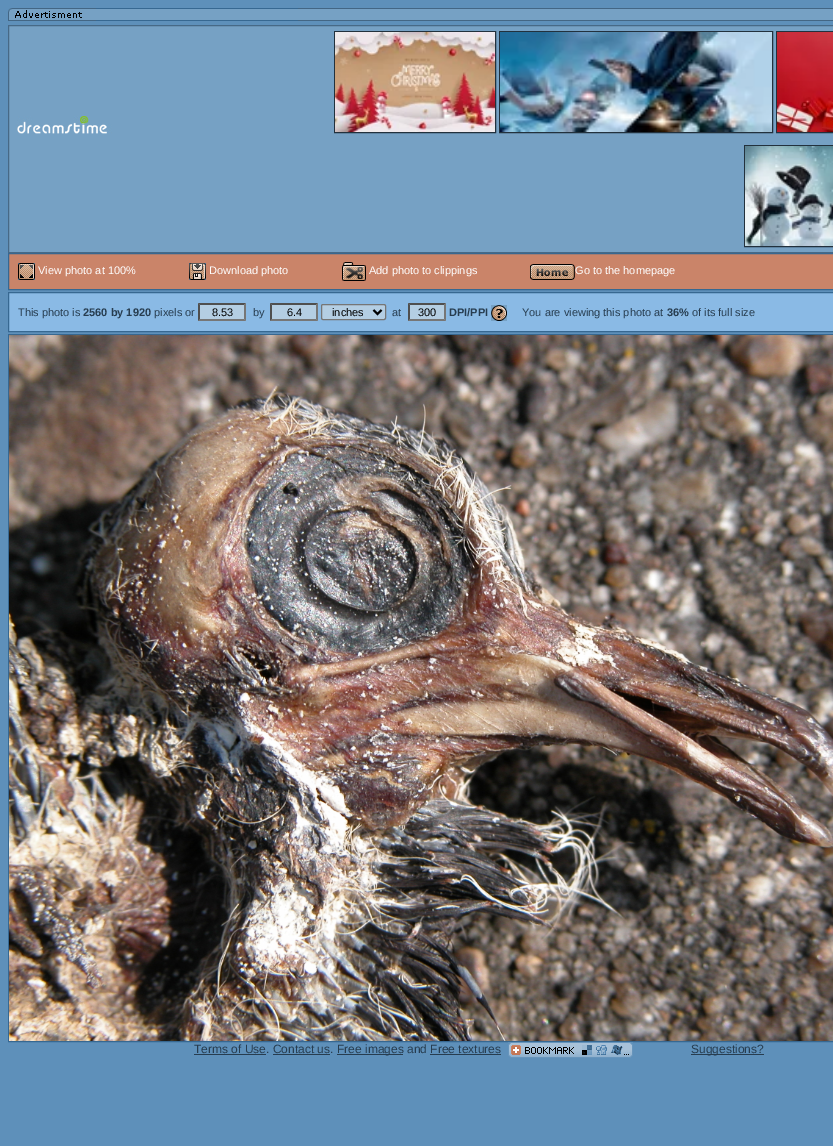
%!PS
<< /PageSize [833 1146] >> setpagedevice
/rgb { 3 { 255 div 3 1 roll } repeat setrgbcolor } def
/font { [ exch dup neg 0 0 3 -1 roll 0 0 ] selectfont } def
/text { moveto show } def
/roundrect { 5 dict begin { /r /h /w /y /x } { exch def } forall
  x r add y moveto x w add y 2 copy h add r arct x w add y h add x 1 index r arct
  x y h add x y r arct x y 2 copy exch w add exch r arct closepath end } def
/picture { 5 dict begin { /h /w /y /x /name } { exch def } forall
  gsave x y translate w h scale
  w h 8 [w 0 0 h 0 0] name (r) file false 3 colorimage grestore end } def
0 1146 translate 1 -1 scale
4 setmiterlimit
94 144 186 rgb
0 0 833 1146 rectfill
(img_01.rgb) 8 8 825 13 picture
118 161 196 rgb
9 26 824 226 rectfill
(img_02.rgb) 17 116 95 18 picture
71 105 134 rgb
8.5 25.5 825 227 rectstroke
34 49 61 rgb
334.5 31.5 161 101 rectstroke
499.5 31.5 273 101 rectstroke
776.5 31.5 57 101 rectstroke
(img_03.rgb) 335 32 160 100 picture
(img_04.rgb) 500 32 272 100 picture
(img_05.rgb) 777 32 56 100 picture
744.5 145.5 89 101 rectstroke
(img_06.rgb) 745 146 88 100 picture
202 132 105 rgb
8.5 253.5 moveto 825 0 rlineto 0 36 rlineto -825 0 rlineto closepath gsave fill grestore
55 104 145 rgb
stroke
(img_07.rgb) 18 263 17 17 picture
(img_08.rgb) 189 263 17 17 picture
(img_09.rgb) 342 262 24 19 picture
(img_10.rgb) 530 264 45 16 picture
138 186 229 rgb
8.5 292.5 moveto 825 0 rlineto 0 39 rlineto -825 0 rlineto closepath gsave fill grestore
55 104 145 rgb
stroke
180 206 227 rgb
198 303 48 18 rectfill
79 79 79 rgb
198 303 moveto 48 0 rlineto -2 2 rlineto -44 0 rlineto closepath fill
118 118 118 rgb
246 303 moveto 0 18 rlineto -2 -2 rlineto 0 -14 rlineto closepath fill
246 321 moveto -48 0 rlineto 2 -2 rlineto 44 0 rlineto closepath fill
79 79 79 rgb
198 321 moveto 0 -18 rlineto 2 2 rlineto 0 14 rlineto closepath fill
180 206 227 rgb
270 303 48 18 rectfill
79 79 79 rgb
270 303 moveto 48 0 rlineto -2 2 rlineto -44 0 rlineto closepath fill
118 118 118 rgb
318 303 moveto 0 18 rlineto -2 -2 rlineto 0 -14 rlineto closepath fill
318 321 moveto -48 0 rlineto 2 -2 rlineto 44 0 rlineto closepath fill
79 79 79 rgb
270 321 moveto 0 -18 rlineto 2 2 rlineto 0 14 rlineto closepath fill
180 206 227 rgb
321.5 304.5 64 15 1.5 roundrect gsave fill grestore
118 118 118 rgb
stroke
0 0 0 rgb
2 setlinewidth
373.5 310 moveto 4 4 rlineto 4 -4 rlineto stroke
180 206 227 rgb
408 303 38 18 rectfill
79 79 79 rgb
408 303 moveto 38 0 rlineto -2 2 rlineto -34 0 rlineto closepath fill
118 118 118 rgb
446 303 moveto 0 18 rlineto -2 -2 rlineto 0 -14 rlineto closepath fill
446 321 moveto -38 0 rlineto 2 -2 rlineto 34 0 rlineto closepath fill
79 79 79 rgb
408 321 moveto 0 -18 rlineto 2 2 rlineto 0 14 rlineto closepath fill
(img_11.rgb) 491 305 16 16 picture
55 104 145 rgb
1 setlinewidth
8.5 334.5 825 707 rectstroke
(img_12.rgb) 9 335 824 706 picture
39 61 80 rgb
194 1054 72 1 rectfill
337 1054 66 1 rectfill
(img_13.rgb) 508 1042 125 16 picture
691 1054 73 1 rectfill
273 1054 57 1 rectfill
430 1054 71 1 rectfill
/LiberationSans-Regular 11 font
255 255 255 rgb
(View photo at 100%) 38 274 text
(Download photo) 209 274 text
(Add photo to clippings) 369 274 text
(Go to the homepage) 575 274 text
39 61 80 rgb
(This photo is) 18 316 text
/LiberationSans-Bold 11 font
(2560 by 1920) 83 316 text
/LiberationSans-Regular 11 font
(pixels or) 154 316 text
0 0 0 rgb
(8.53) 212 316 text
39 61 80 rgb
(by) 253 316 text
0 0 0 rgb
(6.4) 287 316 text
(inches) 332 316 text
39 61 80 rgb
(at) 392 316 text
0 0 0 rgb
(300) 418 316 text
/LiberationSans-Bold 11 font
39 61 80 rgb
(DPI/PPI) 449 316 text
/LiberationSans-Regular 11 font
(You are viewing this photo at) 522 316 text
/LiberationSans-Bold 11 font
(36%) 667 316 text
/LiberationSans-Regular 11 font
(of its full size) 692 316 text
/LiberationSans-Regular 12 font
(Terms of Use. Contact us.) 194 1053 text
(Free images and Free textures) 337 1053 text
(Suggestions?) 691 1053 text
showpage
